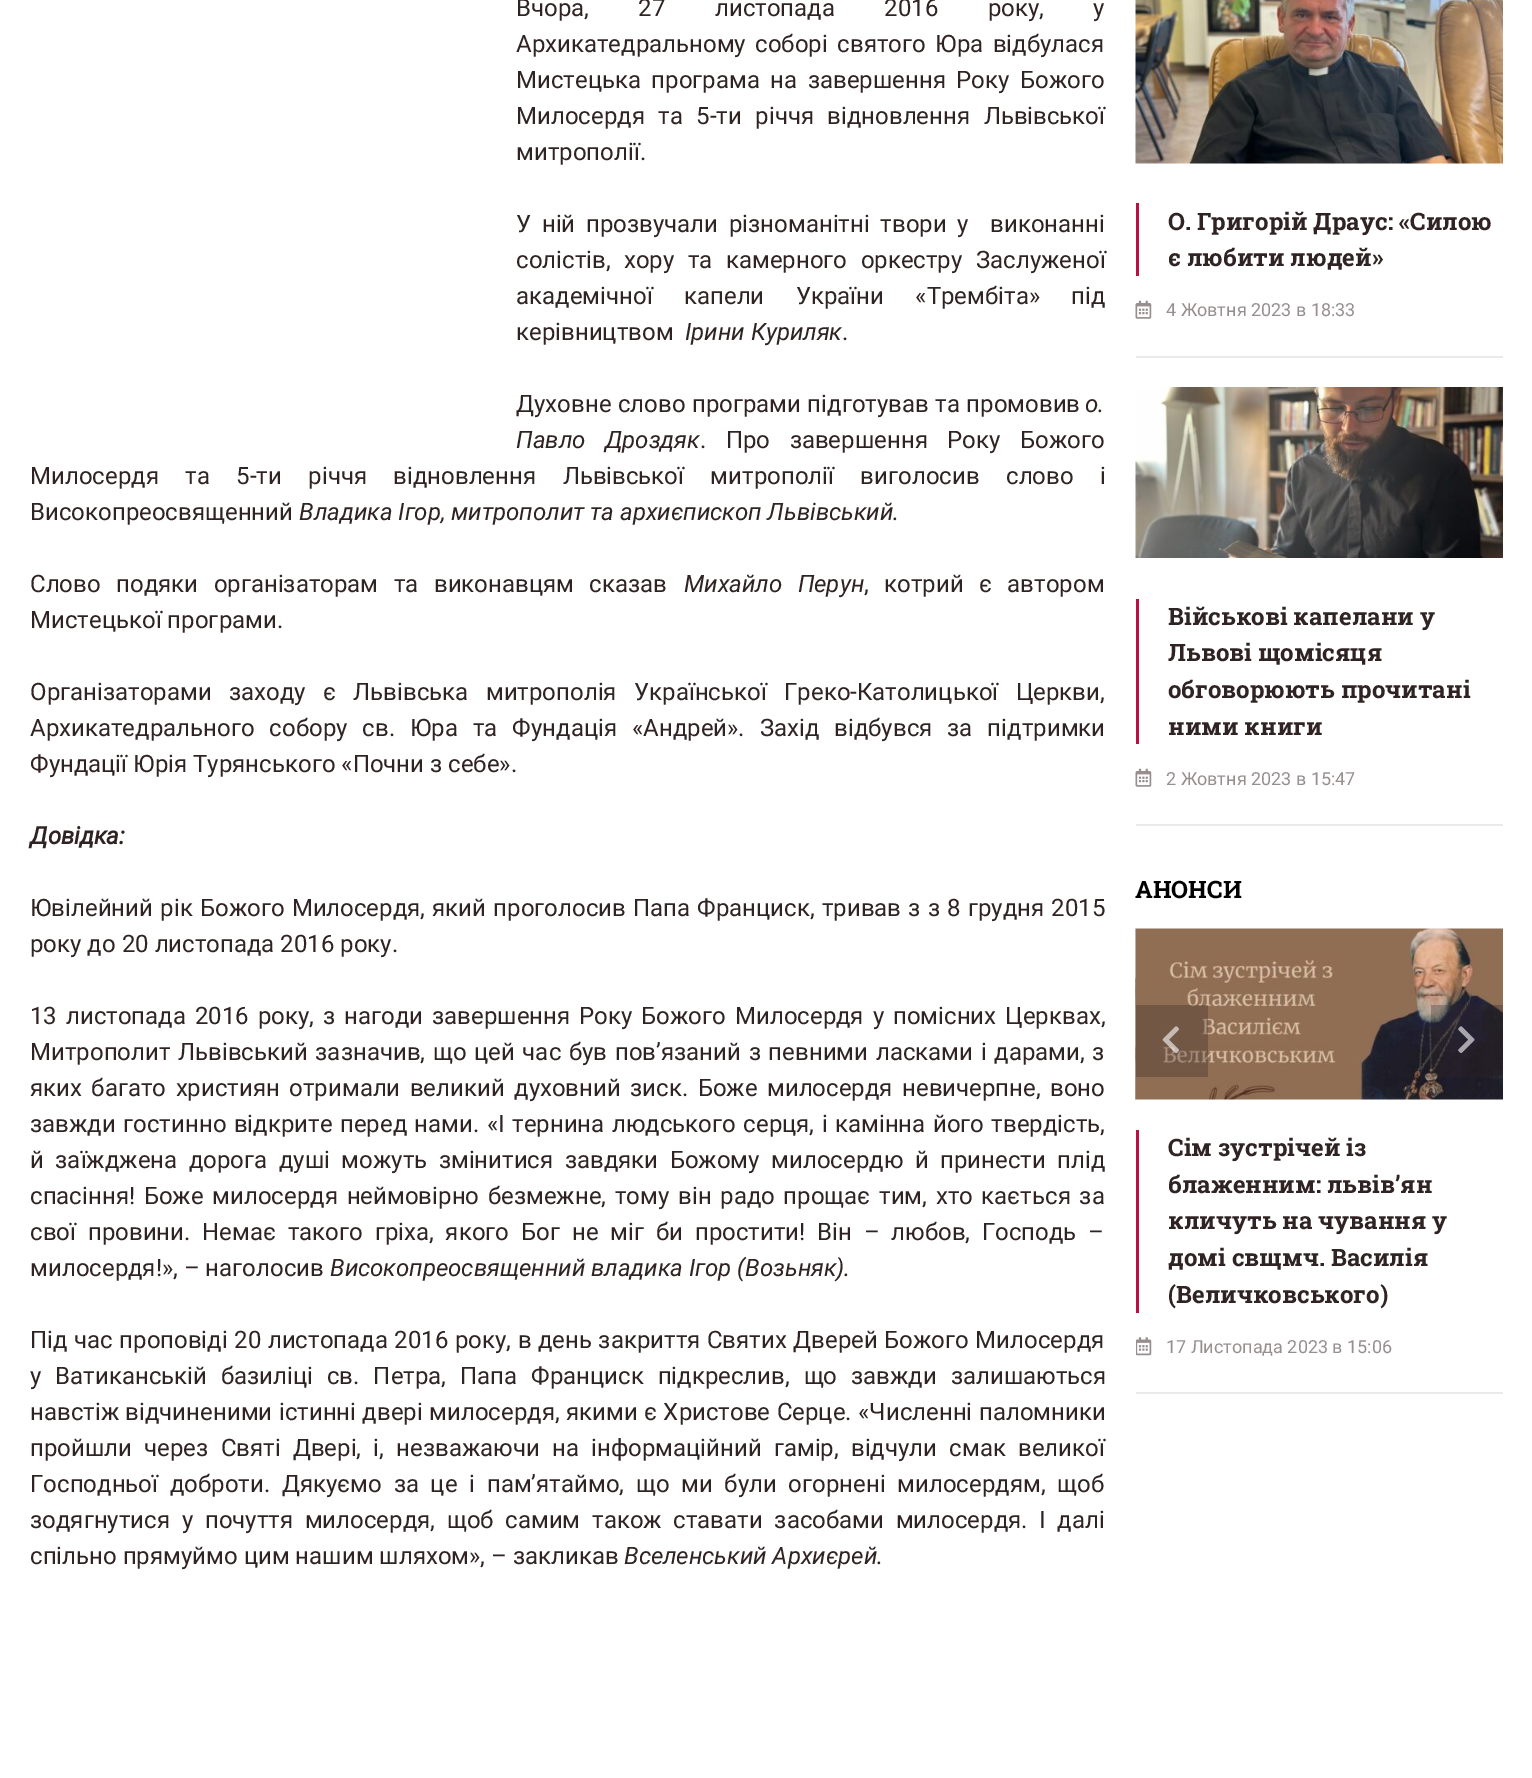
%!PS
<< /PageSize [1532 1778] /PageUsesTransparency true >> setpagedevice
/rgb { 3 { 255 div 3 1 roll } repeat setrgbcolor } def
/font { [ exch dup neg 0 0 3 -1 roll 0 0 ] selectfont } def
/text { moveto show } def
/alpha { dup .setfillconstantalpha .setstrokeconstantalpha } def
/picture { 5 dict begin { /h /w /y /x /name } { exch def } forall
  gsave x y translate w h scale
  w h 8 [w 0 0 h 0 0] name (r) file false 3 colorimage grestore end } def
0 .pushpdf14devicefilter
0 1778 translate 1 -1 scale
4 setmiterlimit
255 255 255 rgb
0 0 1532 1778 rectfill
234 234 234 rgb
1136 356 367 2 rectfill
(img_01.rgb) 1135 0 368 164 picture
187 16 64 rgb
1136 203 3 73 rectfill
(img_02.rgb) 1135 300 17 19 picture
234 234 234 rgb
1136 824 367 2 rectfill
(img_03.rgb) 1135 387 368 171 picture
187 16 64 rgb
1136 599 3 145 rectfill
(img_02.rgb) 1135 768 17 19 picture
(img_06.rgb) 1135 928 1 172 picture
(img_07.rgb) 1135 928 368 172 picture
0.3 alpha
48 35 35 rgb
1136 1005 72 72 rectfill
1 alpha
(img_04.rgb) 1162 1026 17 27 picture
0.3 alpha
1431 1005 72 72 rectfill
1 alpha
(img_05.rgb) 1458 1026 17 27 picture
234 234 234 rgb
1136 1392 367 2 rectfill
187 16 64 rgb
1136 1130 3 183 rectfill
(img_08.rgb) 1136 1337 16 19 picture
/Roboto-Regular 24 font
48 35 35 rgb
516 16 moveto 43.5 0 32 (Вчора, 27 листопада 2016 року, у) widthshow
516 52 moveto 3.5 0 32 (Архикатедральному соборі святого Юра відбулася) widthshow
516 88 moveto 4.5 0 32 (Мистецька програма на завершення Року Божого) widthshow
516 124 moveto 7.5 0 32 (Милосердя та 5-ти річчя відновлення Львівської) widthshow
(митрополії.) 516 160 text
516 232 moveto 4.75 0 32 (У ній прозвучали різноманітні твори у  виконанні) widthshow
516 268 moveto 7.5 0 32 (солістів, хору та камерного оркестру Заслуженої) widthshow
516 304 moveto 25.5 0 32 (академічної капели України «Трембіта» під) widthshow
(керівництвом) 516 340 text
/Roboto-Italic 24 font
(Ірини Куриляк) 685 340 text
/Roboto-Regular 24 font
(.) 842 340 text
516 412 moveto 0.5 0 32 (Духовне слово програми підготував та промовив) widthshow
/Roboto-Italic 24 font
(о.) 1085 412 text
516 448 moveto 13.5 0 32 (Павло Дроздяк) widthshow
/Roboto-Regular 24 font
700 448 moveto 13.5 0 32 (. Про завершення Року Божого) widthshow
30 484 moveto 20.5 0 32 (Милосердя та 5-ти річчя відновлення Львівської митрополії виголосив слово і) widthshow
(Високопреосвященний) 30 520 text
/Roboto-Italic 24 font
(Владика Ігор, митрополит та архиєпископ Львівський.) 299 520 text
/Roboto-Regular 24 font
30 592 moveto 9.5 0 32 (Слово подяки організаторам та виконавцям сказав) widthshow
/Roboto-Italic 24 font
684 592 moveto 9.5 0 32 (Михайло Перун) widthshow
/Roboto-Regular 24 font
864 592 moveto 9.5 0 32 (, котрий є автором) widthshow
(Мистецької програми.) 30 628 text
30 700 moveto 11.5 0 32 (Організаторами заходу є Львівська митрополія Української Греко-Католицької Церкви,) widthshow
30 736 moveto 9 0 32 (Архикатедрального собору св. Юра та Фундація «Андрей». Захід відбувся за підтримки) widthshow
(Фундації Юрія Турянського «Почни з себе».) 30 772 text
/Roboto-BoldItalic 24 font
(Довідка:) 30 844 text
/Roboto-Regular 24 font
30 916 moveto 1.25 0 32 (Ювілейний рік Божого Милосердя, який проголосив Папа Франциск, тривав з з 8 грудня 2015) widthshow
(року до 20 листопада 2016 року.) 30 952 text
30 1024 moveto 3 0 32 (13 листопада 2016 року, з нагоди завершення Року Божого Милосердя у помісних Церквах,) widthshow
30 1060 moveto 1.75 0 32 (Митрополит Львівський зазначив, що цей час був пов’язаний з певними ласками і дарами, з) widthshow
30 1096 moveto 3.5 0 32 (яких багато християн отримали великий духовний зиск. Боже милосердя невичерпне, воно) widthshow
30 1132 moveto 1.5 0 32 (завжди гостинно відкрите перед нами. «І тернина людського серця, і камінна його твердість,) widthshow
30 1168 moveto 5.5 0 32 (й заїжджена дорога душі можуть змінитися завдяки Божому милосердю й принести плід) widthshow
30 1204 moveto 2.75 0 32 (спасіння! Боже милосердя неймовірно безмежне, тому він радо прощає тим, хто кається за) widthshow
30 1240 moveto 5.9 0 32 (свої провини. Немає такого гріха, якого Бог не міг би простити! Він – любов, Господь –) widthshow
(милосердя!», – наголосив) 30 1276 text
/Roboto-Italic 24 font
(Високопреосвященний владика Ігор \(Возьняк\).) 330 1276 text
/Roboto-Regular 24 font
30 1348 moveto 0.6 0 32 (Під час проповіді 20 листопада 2016 року, в день закриття Святих Дверей Божого Милосердя) widthshow
30 1384 moveto 8 0 32 (у Ватиканській базиліці св. Петра, Папа Франциск підкреслив, що завжди залишаються) widthshow
30 1420 moveto 0.5 0 32 (навстіж відчиненими істинні двері милосердя, якими є Христове Серце. «Численні паломники) widthshow
30 1456 moveto 6.25 0 32 (пройшли через Святі Двері, і, незважаючи на інформаційний гамір, відчули смак великої) widthshow
30 1492 moveto 5.75 0 32 (Господньої доброти. Дякуємо за це і пам’ятаймо, що ми були огорнені милосердям, щоб) widthshow
30 1528 moveto 5.75 0 32 (зодягнутися у почуття милосердя, щоб самим також ставати засобами милосердя. І далі) widthshow
(спільно прямуймо цим нашим шляхом», – закликав) 30 1564 text
/Roboto-Italic 24 font
(Вселенський Архиєрей.) 624 1564 text
/RobotoSlab-Bold 24 font
(О. Григорій Драус: «Силою) 1168 230 text
(є любити людей») 1168 266 text
/Roboto-Regular 18 font
150 142 143 rgb
(4 Жовтня 2023 в 18:33) 1166 316 text
/RobotoSlab-Bold 24 font
48 35 35 rgb
(Військові капелани у) 1168 625 text
(Львові щомісяця) 1168 661 text
(обговорюють прочитані) 1168 698 text
(ними книги) 1168 735 text
/Roboto-Regular 18 font
150 142 143 rgb
(2 Жовтня 2023 в 15:47) 1166 785 text
/RobotoSlab-Bold 24 font
0 0 0 rgb
(АНОНСИ) 1135 898 text
48 35 35 rgb
(Сім зустрічей із) 1168 1156 text
(блаженним: львів’ян) 1168 1193 text
(кличуть на чування у) 1168 1229 text
(домі свщмч. Василія) 1168 1266 text
(\(Величковського\)) 1168 1303 text
/Roboto-Regular 18 font
150 142 143 rgb
(17 Листопада 2023 в 15:06) 1166 1353 text
.poppdf14devicefilter showpage
